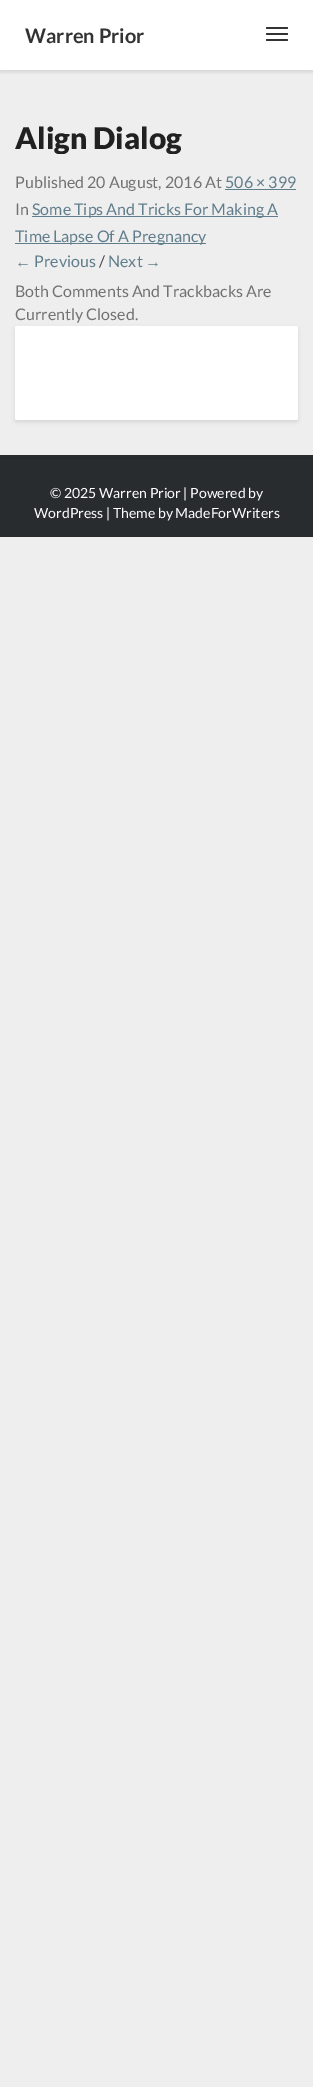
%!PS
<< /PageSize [313 2087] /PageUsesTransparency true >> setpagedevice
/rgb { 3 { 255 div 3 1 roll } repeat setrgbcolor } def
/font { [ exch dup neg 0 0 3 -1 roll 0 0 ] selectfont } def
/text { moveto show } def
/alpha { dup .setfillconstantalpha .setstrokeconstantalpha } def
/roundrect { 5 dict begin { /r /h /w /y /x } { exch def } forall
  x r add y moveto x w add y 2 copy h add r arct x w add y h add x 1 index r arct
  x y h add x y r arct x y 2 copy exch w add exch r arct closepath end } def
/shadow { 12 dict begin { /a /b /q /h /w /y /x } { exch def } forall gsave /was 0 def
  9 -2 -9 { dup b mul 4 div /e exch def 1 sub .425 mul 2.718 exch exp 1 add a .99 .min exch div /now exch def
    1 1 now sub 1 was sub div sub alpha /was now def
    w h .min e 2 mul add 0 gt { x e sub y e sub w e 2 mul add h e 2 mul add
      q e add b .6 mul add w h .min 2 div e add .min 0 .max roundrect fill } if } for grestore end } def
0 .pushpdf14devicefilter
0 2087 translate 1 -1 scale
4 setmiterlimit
238 238 238 rgb
0 0 313 2087 rectfill
255 255 255 rgb
0 0 313 70 rectfill
gsave
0 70 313 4 rectclip
0 0 0 rgb
0 2 313 70 0 2 0.1 shadow
grestore
51 51 51 rgb
266 27 22 2 1 roundrect fill
266 33 22 2 1 roundrect fill
266 39 22 2 1 roundrect fill
96 125 139 rgb
225 189 71 1 rectfill
32 216 246 1 rectfill
15 243 191 1 rectfill
0 0 0 rgb
15 328 283 94 2 2 0.1 shadow
255 255 255 rgb
15 326 283 94 2 roundrect fill
40 44 47 rgb
0 455 313 3 rectfill
0 459 313 78 rectfill
36 40 42 rgb
0 458 313 1 rectfill
/Lato-Bold 20 font
51 51 51 rgb
(Warren Prior) 25 43 text
gsave
15 121 283 33 rectclip
/Lato-Black 30 font
33 33 33 rgb
(Align Dialog) 15 149 text
grestore
/Lato-Regular 16 font
114 114 114 rgb
(Published 20 August, 2016 At) 15 188 text
96 125 139 rgb
(506 × 399) 225 188 text
114 114 114 rgb
(In) 15 215 text
96 125 139 rgb
(Some Tips And Tricks For Making A) 32 215 text
(Time Lapse Of A Pregnancy) 15 242 text
/LiberationSans-Regular 16 font
(←) 15 267 text
/Lato-Regular 16 font
(Previous) 34 267 text
66 66 66 rgb
(/) 99 267 text
96 125 139 rgb
(Next) 108 267 text
/LiberationSans-Regular 16 font
(→) 145 267 text
/Lato-Regular 16 font
114 114 114 rgb
(Both Comments And Trackbacks Are) 15 297 text
(Currently Closed.) 15 320 text
/Lato-Regular 14 font
255 255 255 rgb
(© 2025 Warren Prior | Powered by) 50 498 text
(WordPress | Theme by MadeForWriters) 34 518 text
.poppdf14devicefilter showpage
